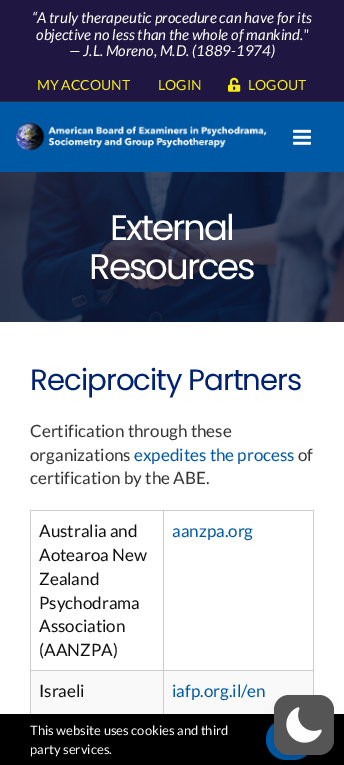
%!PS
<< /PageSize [344 765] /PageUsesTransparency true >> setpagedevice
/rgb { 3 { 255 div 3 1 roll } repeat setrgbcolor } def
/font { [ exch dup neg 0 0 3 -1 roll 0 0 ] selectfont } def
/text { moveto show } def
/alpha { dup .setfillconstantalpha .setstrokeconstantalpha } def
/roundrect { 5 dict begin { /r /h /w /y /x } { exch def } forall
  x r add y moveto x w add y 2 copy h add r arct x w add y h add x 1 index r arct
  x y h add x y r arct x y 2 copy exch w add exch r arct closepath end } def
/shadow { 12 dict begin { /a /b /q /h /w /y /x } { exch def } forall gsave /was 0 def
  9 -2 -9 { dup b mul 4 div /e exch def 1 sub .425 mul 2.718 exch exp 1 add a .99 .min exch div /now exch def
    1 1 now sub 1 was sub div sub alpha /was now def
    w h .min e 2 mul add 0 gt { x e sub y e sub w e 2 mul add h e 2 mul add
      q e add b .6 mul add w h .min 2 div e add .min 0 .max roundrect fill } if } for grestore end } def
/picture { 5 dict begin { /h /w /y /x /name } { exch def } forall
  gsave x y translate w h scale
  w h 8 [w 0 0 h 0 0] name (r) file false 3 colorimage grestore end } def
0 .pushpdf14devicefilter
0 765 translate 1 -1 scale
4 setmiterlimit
255 255 255 rgb
0 0 344 765 rectfill
31 22 65 rgb
0 0 344 101 rectfill
40 46 62 rgb
0 101 344 1 rectfill
(img_01.rgb) 228 77 13 15 picture
0 89 165 rgb
0 102 344 70 rectfill
(img_02.rgb) 15 122 252 29 picture
(img_03.rgb) 293 129 18 16 picture
(img_04.rgb) 0 172 344 150 picture
204 204 204 rgb
163 510 151 1 rectfill
163 670 151 1 rectfill
163 670 1 44 rectfill
30 670 134 1 rectfill
163 510 1 161 rectfill
30 510 134 1 rectfill
30 670 1 44 rectfill
30 510 1 161 rectfill
313 670 1 25 rectfill
313 510 1 161 rectfill
249 249 249 rgb
31 671 132 43 rectfill
164 671 149 43 rectfill
0 0 0 rgb
0 714 344 51 rectfill
0 89 165 rgb
266 719 48 41 20.5 roundrect fill
0 0 0 rgb
278 703 52 52 11 3 0.1 shadow
277 708 54 54 12 7.5 0.1 shadow
85 85 85 rgb
274 695 60 60 15 roundrect fill
(img_05.rgb) 286 707 36 36 picture
/Lato-Italic 15 font
255 255 255 rgb
(“A truly therapeutic procedure can have for its) 32 23 text
(objective no less than the whole of mankind.") 36 40 text
(— J.L. Moreno, M.D. \(1889-1974\)) 69 56 text
/Lato-Regular 14 font
248 235 22 rgb
(MY ACCOUNT) 37 90 text
(LOGIN) 158 90 text
(LOGOUT) 248 90 text
/Poppins-Regular 35.5 font
255 255 255 rgb
110 240 moveto -2 0 (External) ashow
89 279 moveto -2 0 (Resources) ashow
/Poppins-Regular 29.25 font
1 33 114 rgb
30 390 moveto -1 0 (Reciprocity Partners) ashow
/Lato-Regular 17 font
53 53 53 rgb
(Certification through these) 30 437 text
(organizations) 30 461 text
0 89 165 rgb
(expedites the process) 134 461 text
53 53 53 rgb
(of) 298 461 text
(certification by the ABE.) 30 484 text
17 17 17 rgb
(Australia and) 39 537 text
(Aotearoa New) 39 561 text
(Zealand) 39 585 text
(Psychodrama) 39 609 text
(Association) 39 632 text
(\(AANZPA\)) 39 656 text
0 89 165 rgb
(aanzpa.org) 172 537 text
17 17 17 rgb
(Israeli) 39 697 text
0 89 165 rgb
(iafp.org.il/en) 172 697 text
/Lato-Regular 13 font
255 255 255 rgb
(This website uses cookies and third) 30 735 text
(party services.) 30 754 text
.poppdf14devicefilter showpage
